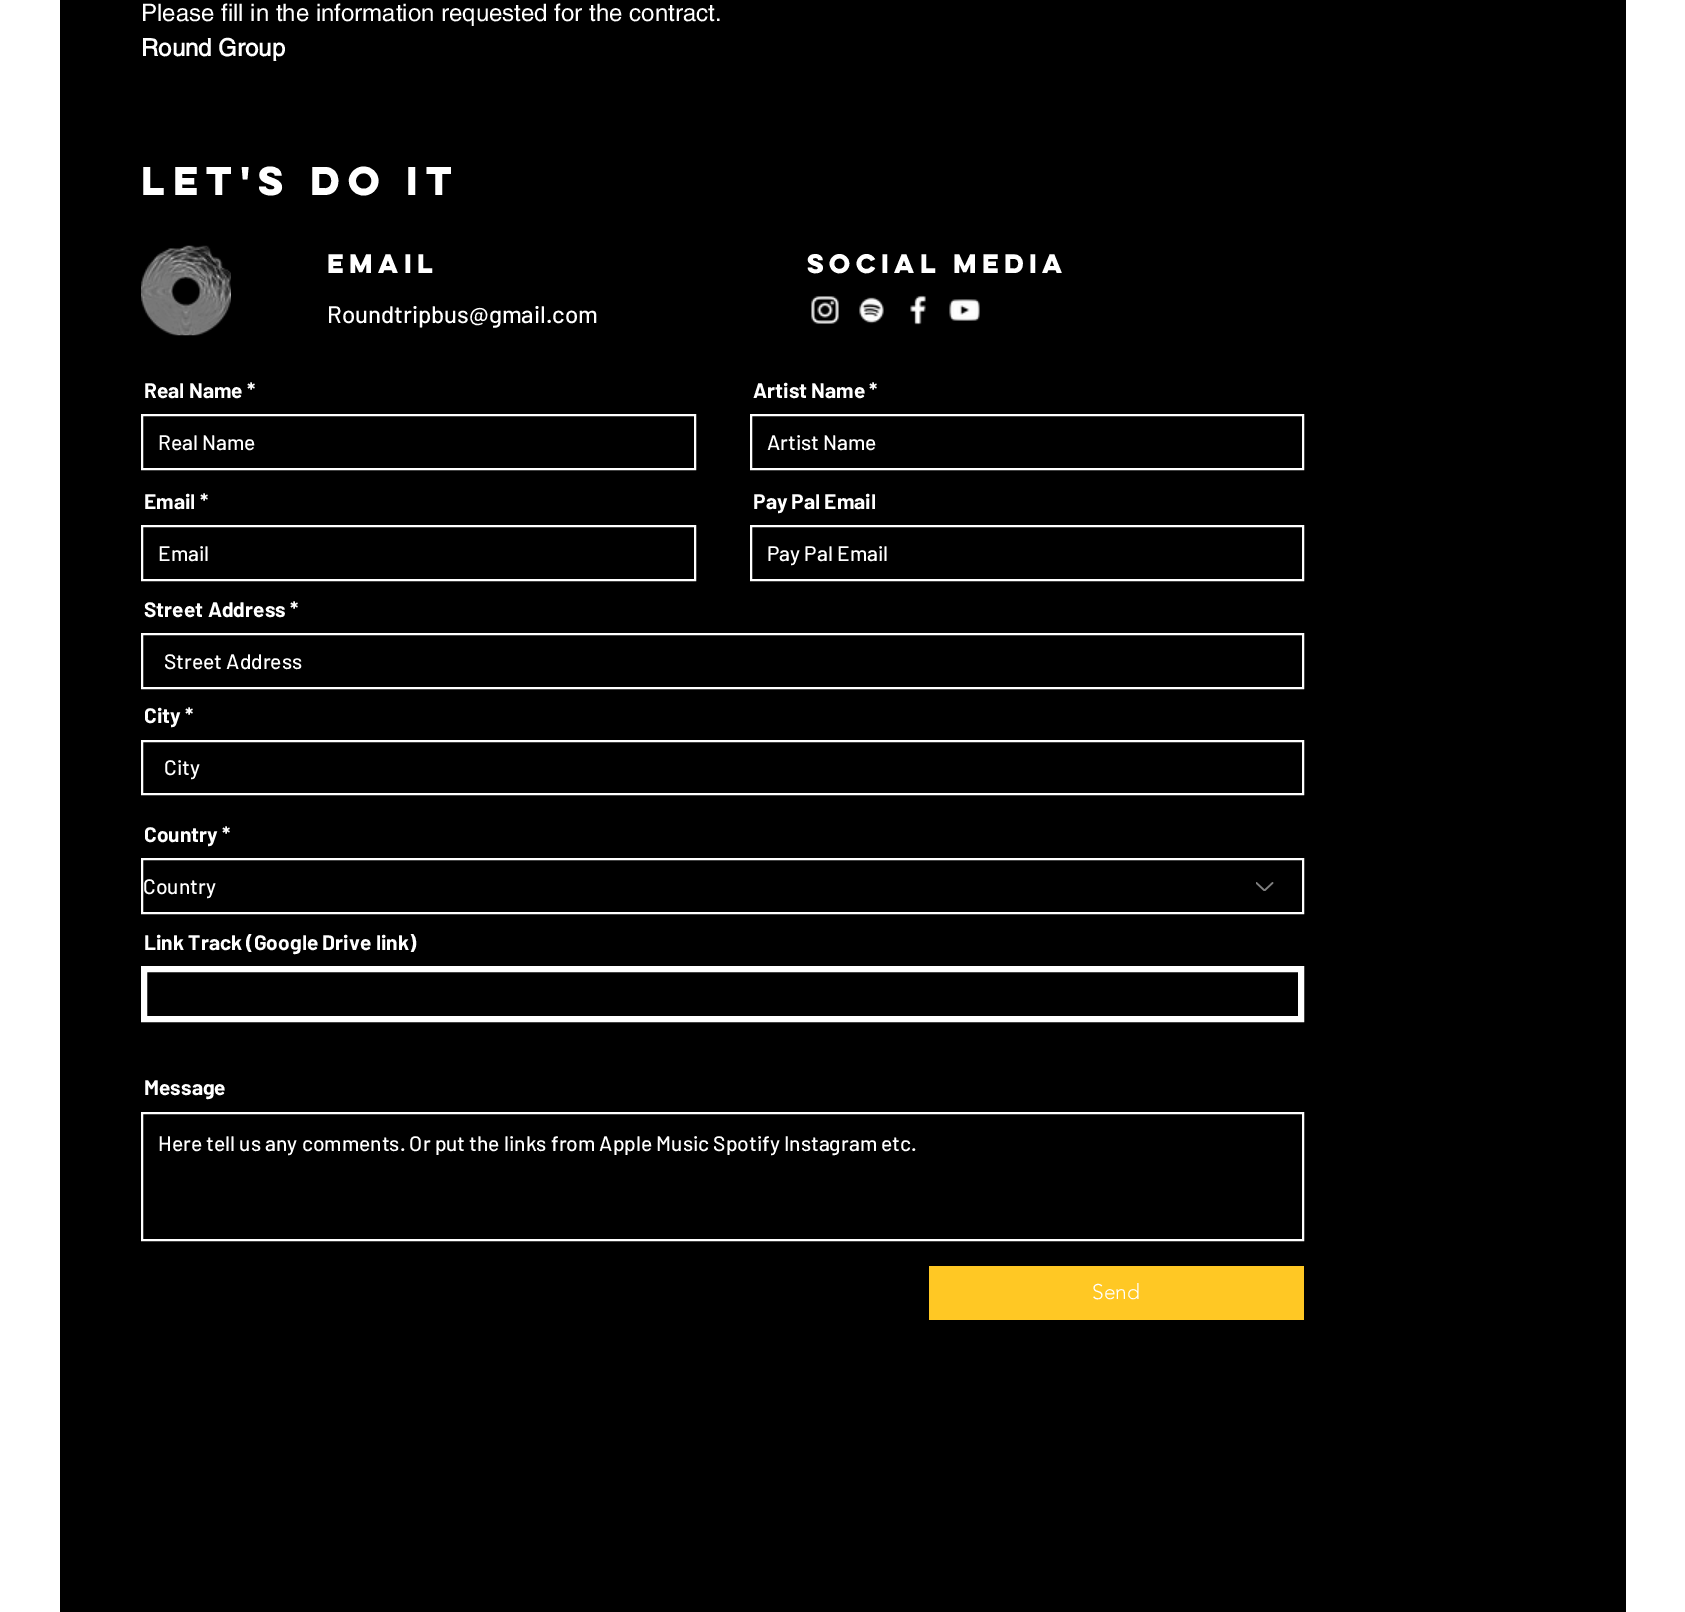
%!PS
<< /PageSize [1685 1612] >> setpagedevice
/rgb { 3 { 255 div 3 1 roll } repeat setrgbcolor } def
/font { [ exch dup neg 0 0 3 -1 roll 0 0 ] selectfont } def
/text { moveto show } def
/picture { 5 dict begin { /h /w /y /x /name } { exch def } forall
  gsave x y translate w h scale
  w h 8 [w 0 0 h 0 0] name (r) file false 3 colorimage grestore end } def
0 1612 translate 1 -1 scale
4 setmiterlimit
255 255 255 rgb
0 0 1685 1612 rectfill
0 0 0 rgb
60 0 1566 1612 rectfill
(img_01.rgb) 141 245 90 91 picture
(img_02.rgb) 811 296 28 28 picture
(img_03.rgb) 859 297 25 27 picture
(img_04.rgb) 910 295 16 30 picture
(img_05.rgb) 949 299 31 22 picture
255 255 255 rgb
2 setlinewidth
142 415 553 54 rectstroke
751 415 552 54 rectstroke
142 526 553 54 rectstroke
751 526 552 54 rectstroke
142 634 1161 54 rectstroke
142 741 1161 53 rectstroke
142 859 1161 54 rectstroke
(img_06.rgb) 1256 882 18 9 picture
6 setlinewidth
144 969 1157 50 rectstroke
2 setlinewidth
142 1113 1161 127 rectstroke
255 200 36 rgb
929 1266 375 54 rectfill
/helvetica-Regular 24 font
255 255 255 rgb
(Please fill in the information requested for the contract.) 141 21 text
/helvetica-Bold 24 font
(Round Group) 141 56 text
/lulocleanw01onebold-Bold 36 font
(let's do it) 141 195 text
/lulocleanw01onebold-Bold 24 font
(Email) 327 273 text
(Social Media) 807 273 text
/Barlow-Medium 24 font
(Roundtripbus@gmail.com) 327 323 text
/Barlow-Bold 21 font
(Real Name *) 144 398 text
/Barlow-Medium 21 font
(Real Name) 158 450 text
/Barlow-Bold 21 font
(Artist Name *) 753 398 text
/Barlow-Medium 21 font
(Artist Name) 767 450 text
/Barlow-Bold 21 font
(Email *) 144 509 text
/Barlow-Medium 21 font
(Email) 158 561 text
/Barlow-Bold 21 font
(Pay Pal Email) 753 509 text
/Barlow-Medium 21 font
(Pay Pal Email) 767 561 text
/Barlow-Bold 21 font
(Street Address *) 144 617 text
/Barlow-Medium 21 font
(Street Address) 164 669 text
/Barlow-Bold 21 font
(City *) 144 723 text
/Barlow-Medium 21 font
(City) 164 775 text
/Barlow-Bold 21 font
(Country *) 144 842 text
/Barlow-Medium 21 font
(Country) 143 894 text
/Barlow-Bold 21 font
(Link Track \(Google Drive link\)) 144 950 text
(Message) 144 1095 text
/Barlow-Medium 21 font
(Here tell us any comments. Or put the links from Apple Music Spotify Instagram etc.) 158 1151 text
/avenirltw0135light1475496-Light 21 font
(Send) 1092 1299 text
showpage
